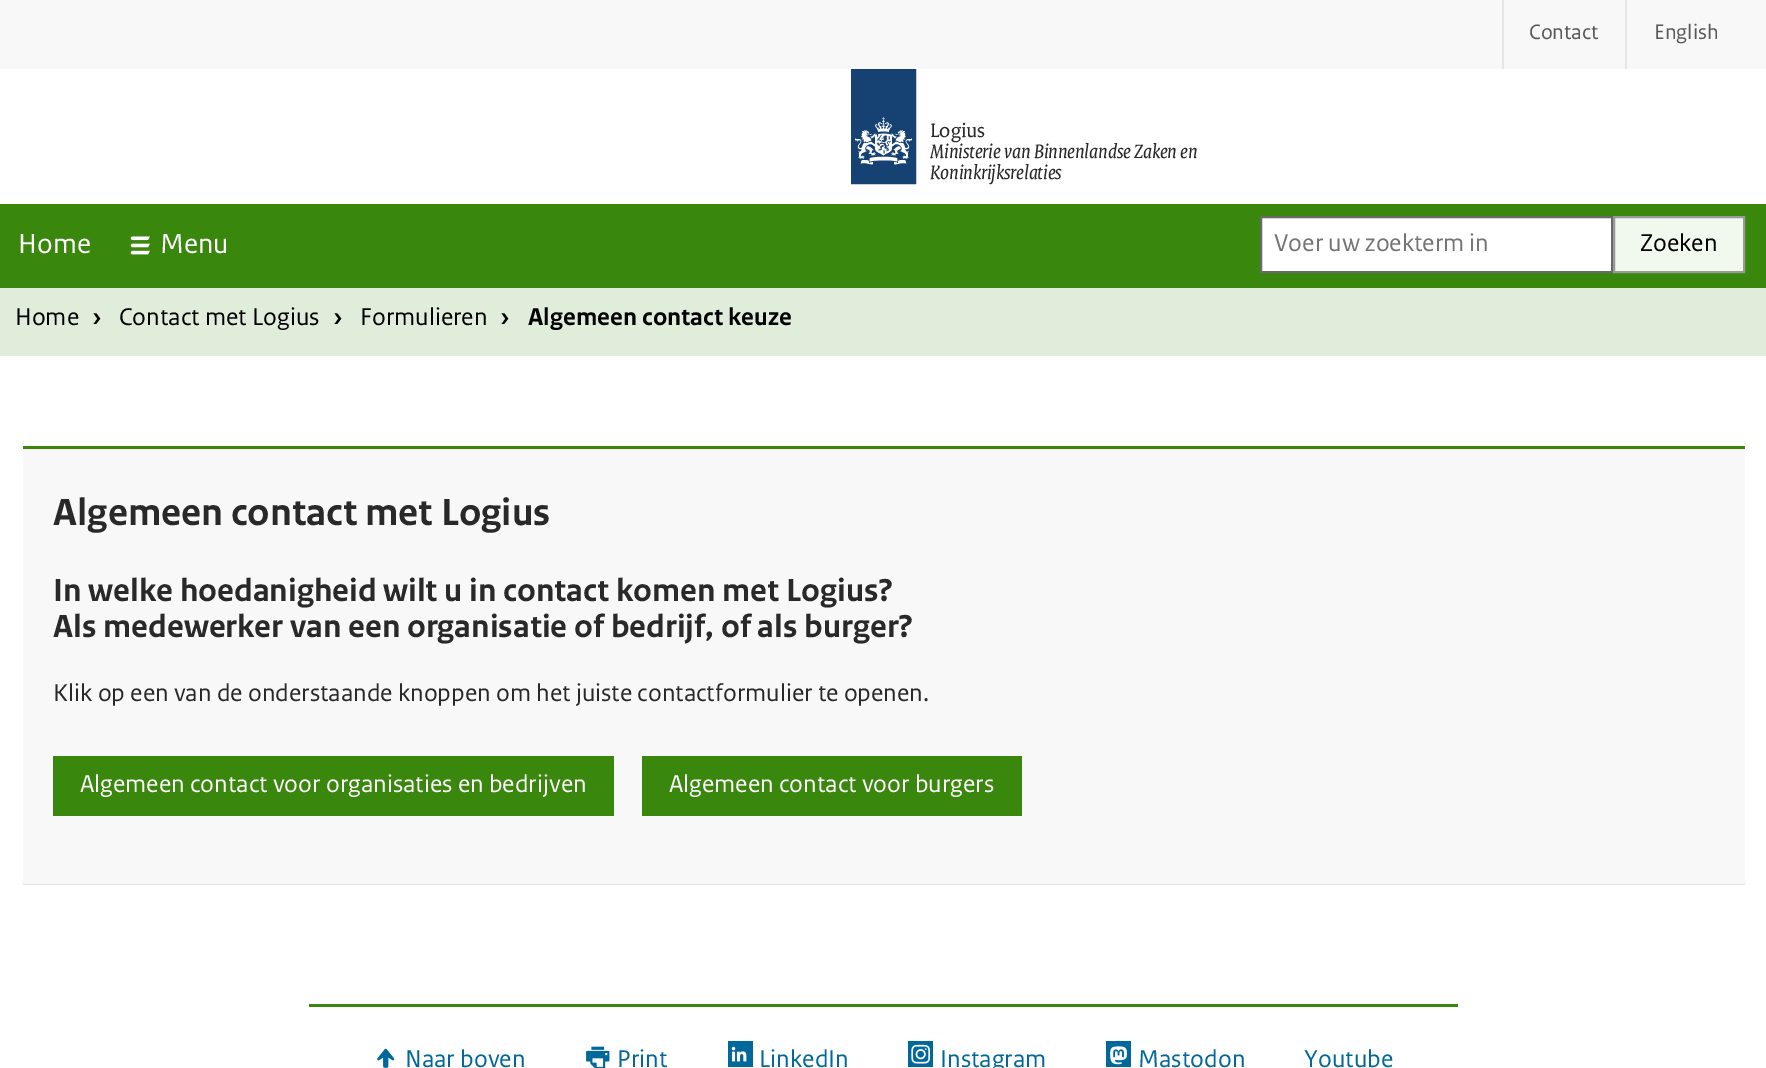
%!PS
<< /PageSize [1766 1068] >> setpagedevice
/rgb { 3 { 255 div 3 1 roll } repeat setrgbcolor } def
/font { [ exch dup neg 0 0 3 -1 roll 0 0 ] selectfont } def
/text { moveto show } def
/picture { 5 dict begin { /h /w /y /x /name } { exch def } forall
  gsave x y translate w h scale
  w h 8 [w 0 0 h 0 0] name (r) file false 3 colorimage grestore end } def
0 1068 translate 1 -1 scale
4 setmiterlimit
255 255 255 rgb
0 0 1766 1068 rectfill
248 248 248 rgb
0 0 1766 69 rectfill
230 230 230 rgb
1502 0 2 69 rectfill
1625 0 2 69 rectfill
(img_01.rgb) 851 69 66 116 picture
57 135 12 rgb
0 204 1766 84 rectfill
(img_02.rgb) 130 236 20 19 picture
255 255 255 rgb
1261 217 moveto 351 0 rlineto 0 55 rlineto -351 0 rlineto closepath gsave fill grestore
105 105 105 rgb
2 setlinewidth
stroke
241 249 238 rgb
1614 217 moveto 130 0 rlineto 0 55 rlineto -130 0 rlineto closepath gsave fill grestore
153 153 153 rgb
stroke
225 237 219 rgb
0 288 1766 68 rectfill
224 224 224 rgb
23 884 moveto 0 1 rlineto 1722 0 rlineto 0 -438 rlineto -1 0 rlineto 0 437 rlineto closepath fill
248 248 248 rgb
23 449 1722 435 rectfill
57 135 12 rgb
23 446 1722 3 rectfill
53 756 561 60 rectfill
642 756 380 60 rectfill
309 1004 1149 3 rectfill
(img_03.rgb) 377 1048 18 20 picture
(img_04.rgb) 586 1046 24 22 picture
1 104 155 rgb
728 1041 25 26 rectfill
(img_05.rgb) 731 1046 16 16 picture
908 1041 25 26 rectfill
(img_06.rgb) 911 1044 20 20 picture
1106 1041 25 26 rectfill
(img_07.rgb) 1110 1046 17 19 picture
/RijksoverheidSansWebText-Regular 22 font
88 88 88 rgb
(Contact) 1529 39 text
(English) 1654 39 text
/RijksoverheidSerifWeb-Regular 21 font
41 41 41 rgb
(Logius) 930 137 text
/RijksoverheidSerifWeb-Italic 21 font
(Ministerie van Binnenlandse Zaken en) 930 158 text
(Koninkrijksrelaties) 930 179 text
/RijksoverheidSansWebText-Regular 29 font
255 255 255 rgb
(Home) 18 253 text
(Menu) 160 253 text
/RijksoverheidSansWebText-Regular 25.5 font
117 117 117 rgb
(Voer uw zoekterm in) 1274 251 text
0 0 0 rgb
(Zoeken) 1640 251 text
(Home) 15 325 text
/RijksoverheidSansWebText-Bold 25.5 font
(›) 92 325 text
/RijksoverheidSansWebText-Regular 25.5 font
(Contact met Logius) 119 325 text
/RijksoverheidSansWebText-Bold 25.5 font
(›) 333 325 text
/RijksoverheidSansWebText-Regular 25.5 font
(Formulieren) 360 325 text
/RijksoverheidSansWebText-Bold 25.5 font
(›) 500 325 text
(Algemeen contact keuze) 528 325 text
/RijksoverheidSansWebText-Bold 39.8 font
41 41 41 rgb
(Algemeen contact met Logius) 53 525 text
/RijksoverheidSansWebText-Bold 33.5 font
(In welke hoedanigheid wilt u in contact komen met Logius?) 53 601 text
(Als medewerker van een organisatie of bedrijf, of als burger?) 53 637 text
/RijksoverheidSansWebText-Regular 25.5 font
(Klik op een van de onderstaande knoppen om het juiste contactformulier te openen.) 53 701 text
255 255 255 rgb
(Algemeen contact voor organisaties en bedrijven) 80 792 text
(Algemeen contact voor burgers) 669 792 text
1 104 155 rgb
(Naar boven) 405 1067 text
(Print) 617 1067 text
(LinkedIn) 759 1067 text
(Instagram) 940 1067 text
(Mastodon) 1138 1067 text
(Youtube) 1304 1067 text
showpage
